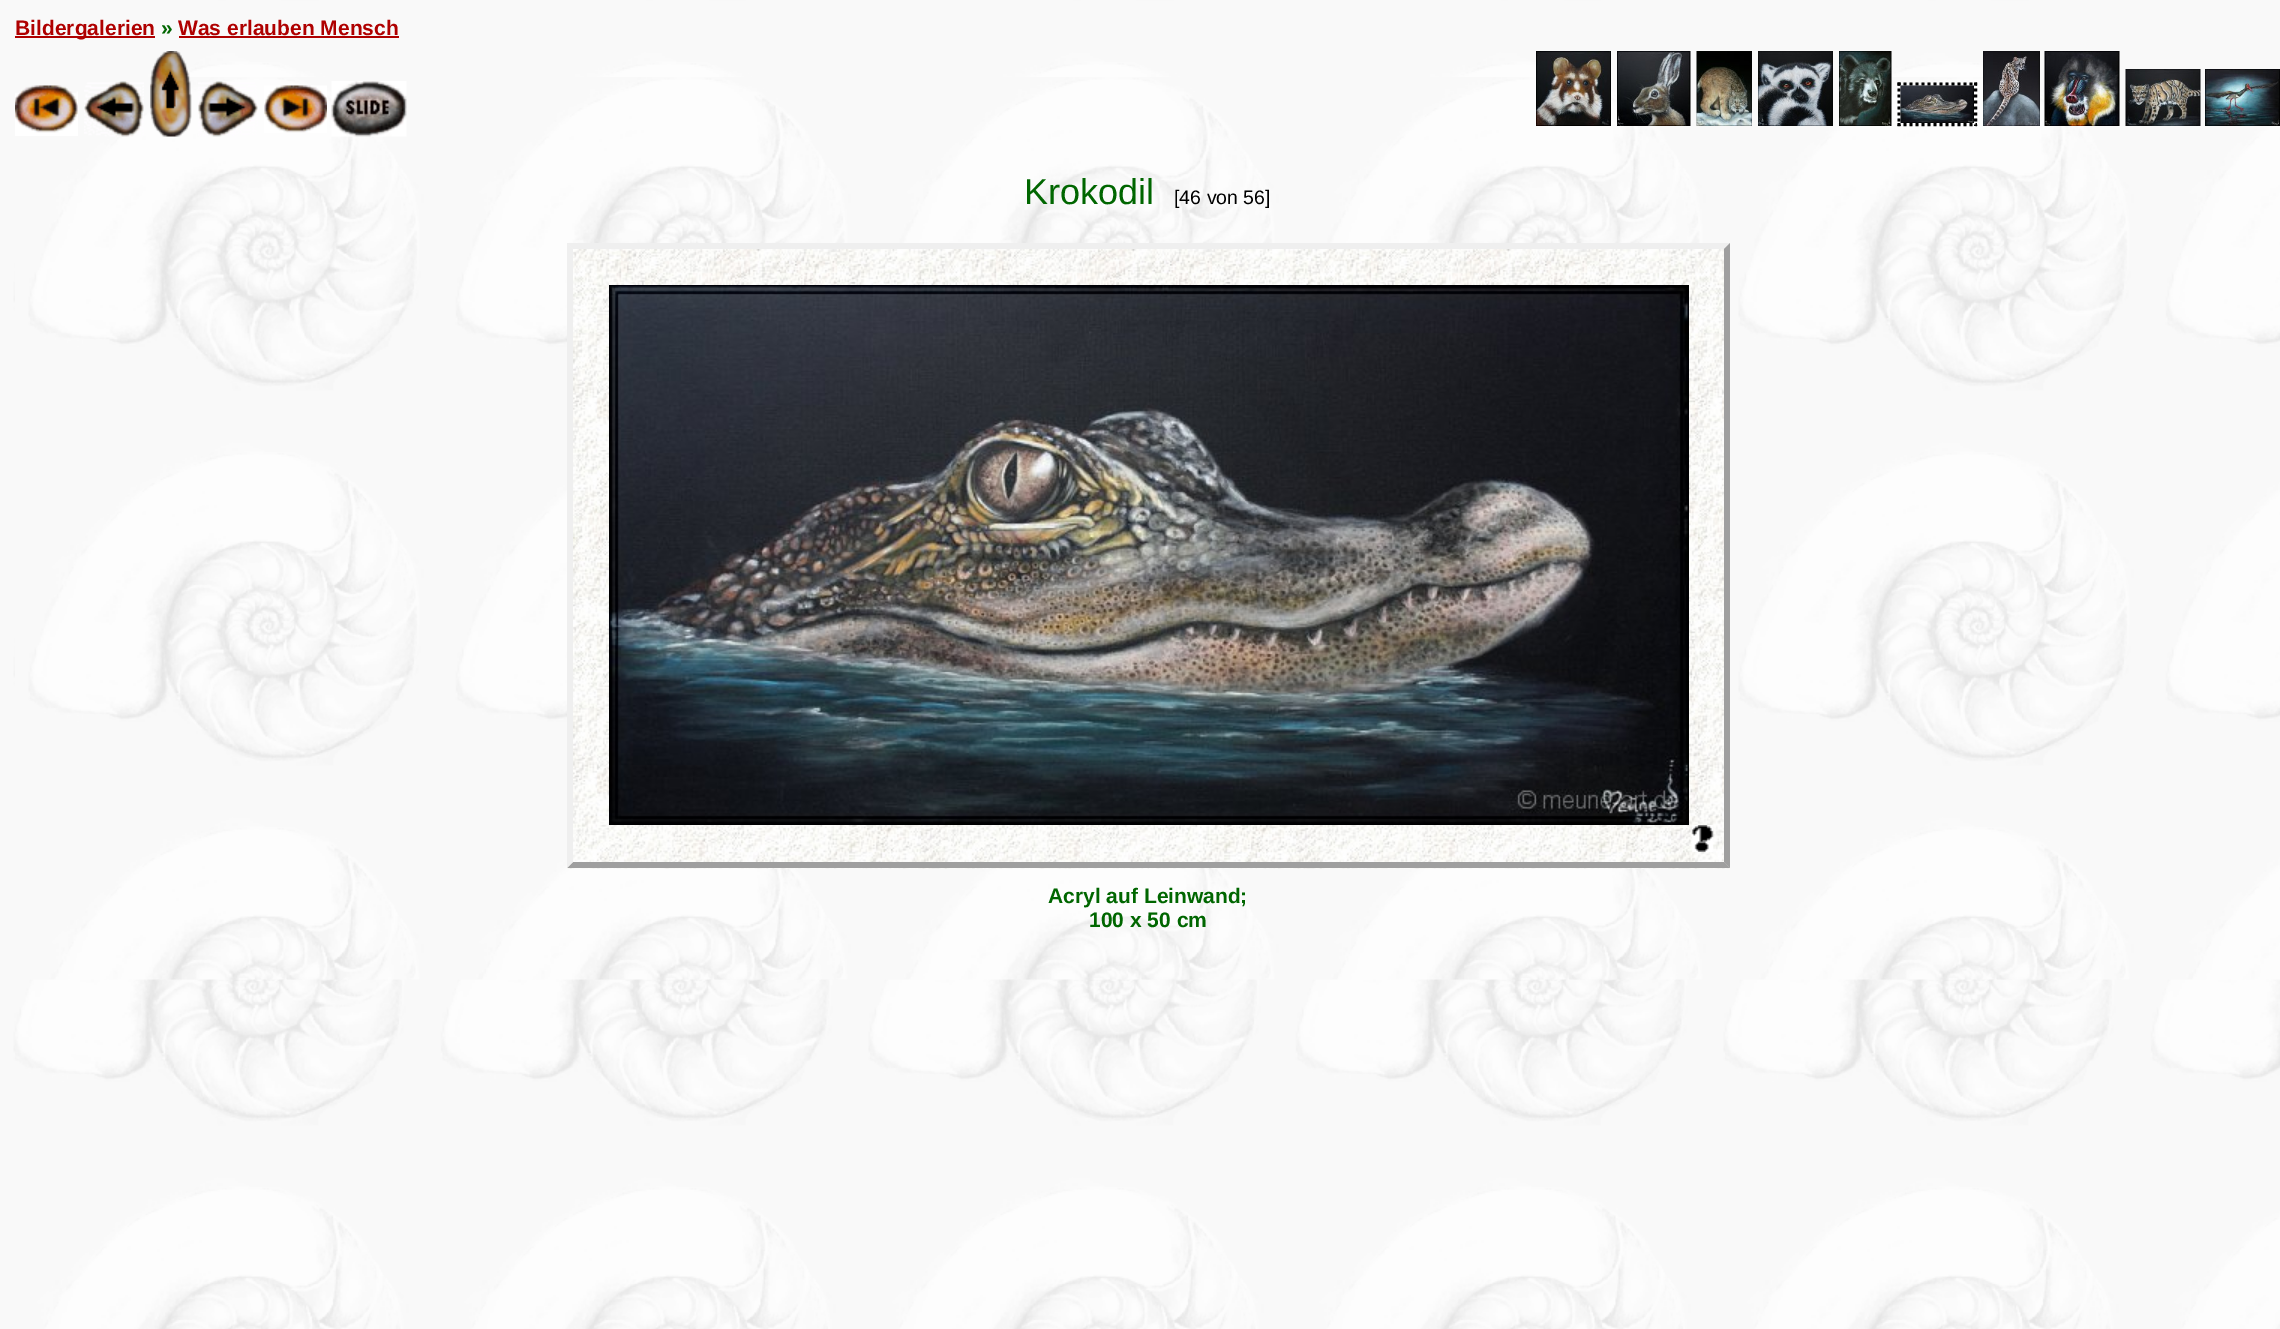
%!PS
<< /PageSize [2280 1329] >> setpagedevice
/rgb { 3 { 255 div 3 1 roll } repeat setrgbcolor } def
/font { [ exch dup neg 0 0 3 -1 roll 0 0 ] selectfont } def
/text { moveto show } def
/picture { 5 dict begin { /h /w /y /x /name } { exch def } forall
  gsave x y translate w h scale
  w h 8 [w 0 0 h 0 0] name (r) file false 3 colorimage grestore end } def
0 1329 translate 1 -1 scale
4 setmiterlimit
255 255 255 rgb
0 0 2280 1329 rectfill
(img_01.rgb) 0 0 2280 1329 picture
(img_02.rgb) 15 77 2265 903 picture
175 0 0 rgb
15 36 140 2 rectfill
179 36 220 2 rectfill
(img_03.rgb) 15 85 63 51 picture
(img_04.rgb) 84 81 60 56 picture
(img_05.rgb) 150 51 42 86 picture
(img_06.rgb) 198 81 60 56 picture
(img_07.rgb) 264 85 63 48 picture
(img_08.rgb) 331 81 76 56 picture
(img_09.rgb) 1536 51 75 75 picture
(img_10.rgb) 1617 51 74 75 picture
(img_11.rgb) 1696 51 56 75 picture
(img_12.rgb) 1758 51 75 75 picture
(img_13.rgb) 1839 51 53 75 picture
0 0 0 rgb
3 setlinewidth
[3 3] 0 setdash
1897.5 84 moveto 79.5 0 rlineto stroke
(img_14.rgb) 1983 51 57 75 picture
(img_15.rgb) 2044 51 76 75 picture
(img_16.rgb) 2125 69 76 57 picture
(img_17.rgb) 2205 69 75 57 picture
1975.5 82.5 moveto 0 43.5 rlineto stroke
1897.5 124.5 moveto 79.5 0 rlineto stroke
1899 82.5 moveto 0 43.5 rlineto stroke
(img_18.rgb) 1900 85 74 38 picture
(img_19.rgb) 567 243 1163 626 picture
239 239 239 rgb
567 243 moveto 1163 0 rlineto -6 6 rlineto -1151 0 rlineto closepath fill
159 159 159 rgb
1730 243 moveto 0 625 rlineto -6 -6 rlineto 0 -613 rlineto closepath fill
1730 868 moveto -1163 0 rlineto 6 -6 rlineto 1151 0 rlineto closepath fill
239 239 239 rgb
567 868 moveto 0 -625 rlineto 6 6 rlineto 0 613 rlineto closepath fill
(img_20.rgb) 609 285 1080 540 picture
(img_21.rgb) 1691 825 23 27 picture
/LiberationSans-Bold 21 font
175 0 0 rgb
(Bildergalerien) 15 35 text
0 102 0 rgb
(») 161 35 text
175 0 0 rgb
(Was erlauben Mensch) 178 35 text
/LiberationSans-Regular 36 font
0 102 0 rgb
(Krokodil) 1024 204 text
/LiberationSans-Regular 19.5 font
0 0 0 rgb
([46 von 56]) 1174 204 text
/LiberationSans-Bold 21 font
0 102 0 rgb
(Acryl auf Leinwand;) 1048 903 text
(100 x 50 cm) 1089 927 text
showpage
